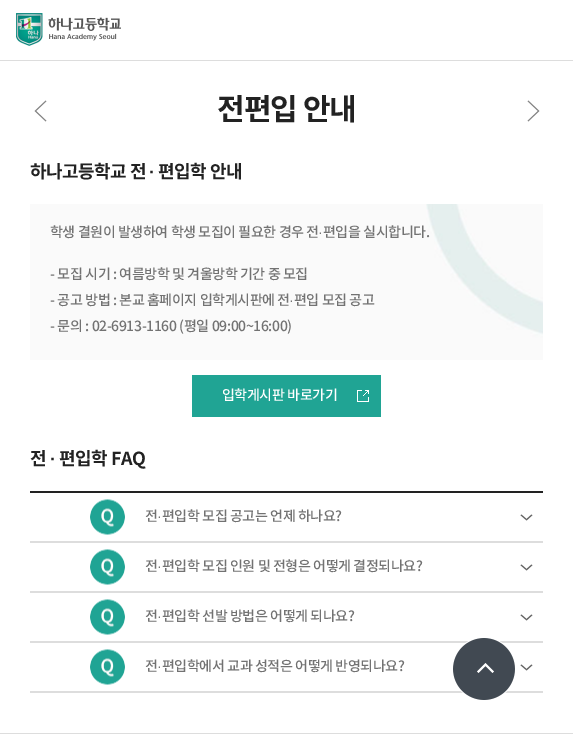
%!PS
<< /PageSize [573 738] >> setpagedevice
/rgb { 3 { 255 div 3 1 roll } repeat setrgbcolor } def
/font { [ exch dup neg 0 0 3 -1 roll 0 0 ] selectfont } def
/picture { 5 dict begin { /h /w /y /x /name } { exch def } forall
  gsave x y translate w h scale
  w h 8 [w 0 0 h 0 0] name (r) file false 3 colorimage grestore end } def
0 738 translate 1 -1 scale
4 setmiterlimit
255 255 255 rgb
0 0 573 738 rectfill
221 221 221 rgb
0 60 573 1 rectfill
(img_01.rgb) 16 13 105 33 picture
(img_02.rgb) 34 100 13 22 picture
(img_03.rgb) 527 100 13 22 picture
(img_04.rgb) 30 204 513 156 picture
32 164 148 rgb
192 375 189 42 rectfill
(img_05.rgb) 357 390 12 12 picture
34 34 34 rgb
30 491 513 2 rectfill
(img_06.rgb) 520 514 13 7 picture
221 221 221 rgb
30 541 513 2 rectfill
(img_07.rgb) 90 499 35 36 picture
(img_06.rgb) 520 564 13 7 picture
30 591 513 2 rectfill
(img_07.rgb) 90 549 35 36 picture
(img_06.rgb) 520 614 13 7 picture
30 641 513 2 rectfill
(img_07.rgb) 90 599 35 36 picture
(img_06.rgb) 520 664 13 7 picture
30 691 513 2 rectfill
(img_07.rgb) 90 649 35 36 picture
(img_08.rgb) 453 638 62 62 picture
0 733 573 1 rectfill
/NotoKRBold-Bold 30 font
34 34 34 rgb
217 120 moveto -1 0 (전편입 안내) ashow
/NotoKRBold-Bold 18 font
30 178 moveto -0.5 0 (하나고등학교 전) ashow
/LiberationSans-Bold 18 font
149 178 moveto -0.5 0 (·) ashow
/NotoKRBold-Bold 18 font
158 178 moveto -0.5 0 (편입학 안내) ashow
/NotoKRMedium-Medium 14 font
114 114 114 rgb
50 237 moveto -0.4 0 (학생 결원이 발생하여 학생 모집이 필요한 경우 전) ashow
/LiberationSans-Regular 14 font
318 237 moveto -0.4 0 (·) ashow
/NotoKRMedium-Medium 14 font
323 237 moveto -0.4 0 (편입을 실시합니다.) ashow
50 279 moveto -0.4 0 (- 모집 시기 : 여름방학 및 겨울방학 기간 중 모집) ashow
50 305 moveto -0.4 0 (- 공고 방법 : 본교 홈페이지 입학게시판에 전) ashow
/LiberationSans-Regular 14 font
289 305 moveto -0.4 0 (·) ashow
/NotoKRMedium-Medium 14 font
294 305 moveto -0.4 0 (편입 모집 공고) ashow
50 331 moveto -0.4 0 (- 문의 : 02-6913-1160 \(평일 09:00~16:00\)) ashow
255 255 255 rgb
222 400 moveto -0.4 0 (입학게시판 바로가기) ashow
/NotoKRBold-Bold 18 font
34 34 34 rgb
30 465 moveto -0.5 0 (전) ashow
/LiberationSans-Bold 18 font
50 465 moveto -0.5 0 (·) ashow
/NotoKRBold-Bold 18 font
59 465 moveto -0.5 0 (편입학 FAQ) ashow
/NotoKRMedium-Medium 14 font
114 114 114 rgb
145 521 moveto -0.4 0 (전) ashow
/LiberationSans-Regular 14 font
157 521 moveto -0.4 0 (·) ashow
/NotoKRMedium-Medium 14 font
162 521 moveto -0.4 0 (편입학 모집 공고는 언제 하나요?) ashow
145 571 moveto -0.4 0 (전) ashow
/LiberationSans-Regular 14 font
157 571 moveto -0.4 0 (·) ashow
/NotoKRMedium-Medium 14 font
162 571 moveto -0.4 0 (편입학 모집 인원 및 전형은 어떻게 결정되나요?) ashow
145 621 moveto -0.4 0 (전) ashow
/LiberationSans-Regular 14 font
157 621 moveto -0.4 0 (·) ashow
/NotoKRMedium-Medium 14 font
162 621 moveto -0.4 0 (편입학 선발 방법은 어떻게 되나요?) ashow
145 671 moveto -0.4 0 (전) ashow
/LiberationSans-Regular 14 font
157 671 moveto -0.4 0 (·) ashow
/NotoKRMedium-Medium 14 font
162 671 moveto -0.4 0 (편입학에서 교과 성적은 어떻게 반영되나요?) ashow
showpage
